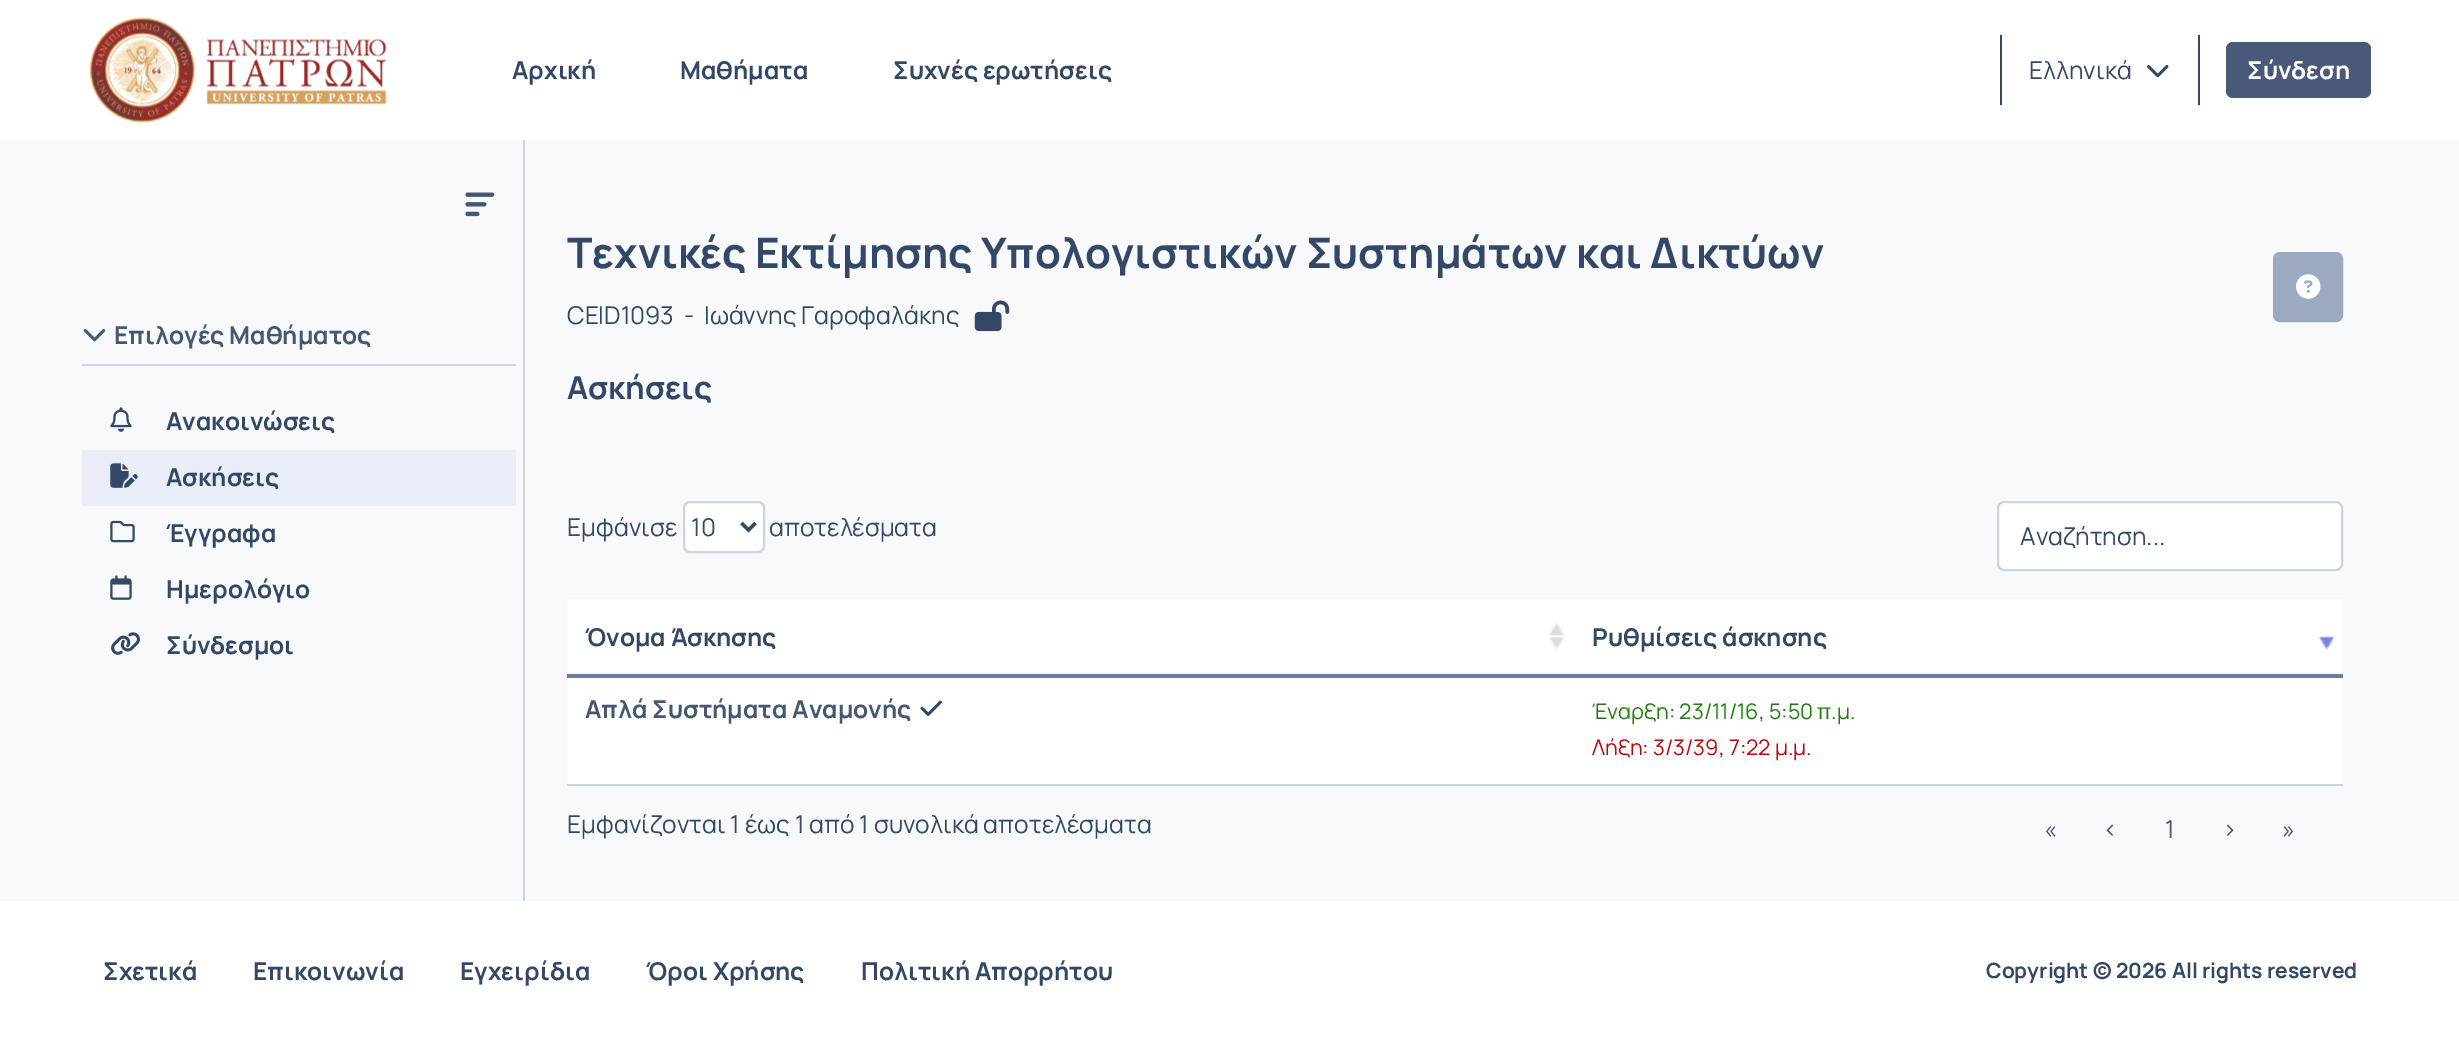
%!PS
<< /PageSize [2459 1040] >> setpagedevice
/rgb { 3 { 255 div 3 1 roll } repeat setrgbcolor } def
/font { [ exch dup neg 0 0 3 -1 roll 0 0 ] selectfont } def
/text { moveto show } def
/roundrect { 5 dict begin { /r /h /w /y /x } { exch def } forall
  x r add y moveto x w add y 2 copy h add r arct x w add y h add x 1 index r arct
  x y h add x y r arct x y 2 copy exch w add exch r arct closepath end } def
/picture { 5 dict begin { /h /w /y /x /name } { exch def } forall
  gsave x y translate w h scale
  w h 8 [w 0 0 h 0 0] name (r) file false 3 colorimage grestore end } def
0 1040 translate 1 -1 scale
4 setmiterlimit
248 249 250 rgb
0 0 2459 1040 rectfill
255 255 255 rgb
0 0 2459 140 rectfill
(img_01.rgb) 89 17 298 106 picture
52 71 103 rgb
2000 35 2 70 rectfill
(img_02.rgb) 2147 65 22 13 picture
2198 35 2 70 rectfill
74 89 120 rgb
2226 42 145 56 7 roundrect fill
(img_03.rgb) 465 192 30 25 picture
205 212 224 rgb
82 364 434 2 rectfill
(img_04.rgb) 83 329 23 13 picture
(img_05.rgb) 110 407 22 25 picture
232 237 248 rgb
82 450 434 56 rectfill
(img_06.rgb) 110 463 28 25 picture
(img_07.rgb) 110 520 25 23 picture
(img_08.rgb) 110 575 22 25 picture
(img_09.rgb) 111 632 29 23 picture
205 212 224 rgb
523 140 2 761 rectfill
(img_10.rgb) 974 300 36 32 picture
155 169 193 rgb
2274 253 68 68 6 roundrect gsave fill grestore
2 setlinewidth
stroke
(img_11.rgb) 2296 274 25 25 picture
255 255 255 rgb
684 502 80 50 6 roundrect gsave fill grestore
205 212 224 rgb
stroke
52 71 103 rgb
3.5 setlinewidth
741.5 523 moveto 7 7 rlineto 7 -7 rlineto stroke
255 255 255 rgb
1998 502 344 68 6 roundrect gsave fill grestore
205 212 224 rgb
2 setlinewidth
stroke
567 784 1776 2 rectfill
255 255 255 rgb
567 599 1776 73 rectfill
104 125 163 rgb
567 674 1776 4 rectfill
(img_12.rgb) 1549 623 16 27 picture
(img_13.rgb) 2318 636 17 14 picture
255 255 255 rgb
567 678 1776 106 rectfill
(img_14.rgb) 920 700 22 16 picture
0 901 2459 139 rectfill
/Manrope-Bold 24.5 font
52 71 103 rgb
(Αρχική) 512 79 text
(Μαθήματα) 680 79 text
(Συχνές ερωτήσεις) 893 79 text
/Manrope-Regular 24.5 font
(Ελληνικά) 2029 79 text
/Manrope-Bold 24.5 font
255 255 255 rgb
(Σύνδεση) 2247 79 text
70 87 114 rgb
(Επιλογές Μαθήματος) 114 344 text
52 71 103 rgb
(Ανακοινώσεις) 166 430 text
(Ασκήσεις) 166 486 text
(Έγγραφα) 166 542 text
(Ημερολόγιο) 166 598 text
(Σύνδεσμοι) 166 654 text
/Manrope-Bold 42 font
(Τεχνικές Εκτίμησης Υπολογιστικών Συστημάτων και Δικτύων) 567 268 text
/Manrope-Regular 24.5 font
(CEID1093  -  Ιωάννης Γαροφαλάκης) 567 324 text
/Manrope-Bold 31.5 font
(Ασκήσεις) 567 399 text
/Manrope-Regular 24.5 font
(Εμφάνισε) 567 536 text
(10) 691 536 text
(αποτελέσματα) 769 536 text
(Αναζήτηση...) 2020 545 text
/Manrope-Bold 24.5 font
(Όνομα Άσκησης) 585 646 text
(Ρυθμίσεις άσκησης) 1592 646 text
70 87 114 rgb
(Απλά Συστήματα Αναμονής) 585 718 text
/Manrope-Regular 21.5 font
30 126 14 rgb
(Έναρξη: 23/11/16, 5:50 π.μ.) 1592 719 text
183 10 10 rgb
(Λήξη: 3/3/39, 7:22 μ.μ.) 1592 755 text
/Manrope-Regular 24.5 font
52 71 103 rgb
(Εμφανίζονται 1 έως 1 από 1 συνολικά αποτελέσματα) 567 833 text
70 87 114 rgb
(«) 2044 838 text
(‹) 2103 838 text
(1) 2165 838 text
(›) 2222 838 text
(») 2282 838 text
/Manrope-Bold 24.5 font
52 71 103 rgb
(Σχετικά) 103 980 text
(Επικοινωνία) 253 980 text
(Εγχειρίδια) 460 980 text
(Όροι Χρήσης) 646 980 text
(Πολιτική Απορρήτου) 861 980 text
/Manrope-Bold 21 font
(Copyright © 2026 All rights reserved) 1986 978 text
showpage
